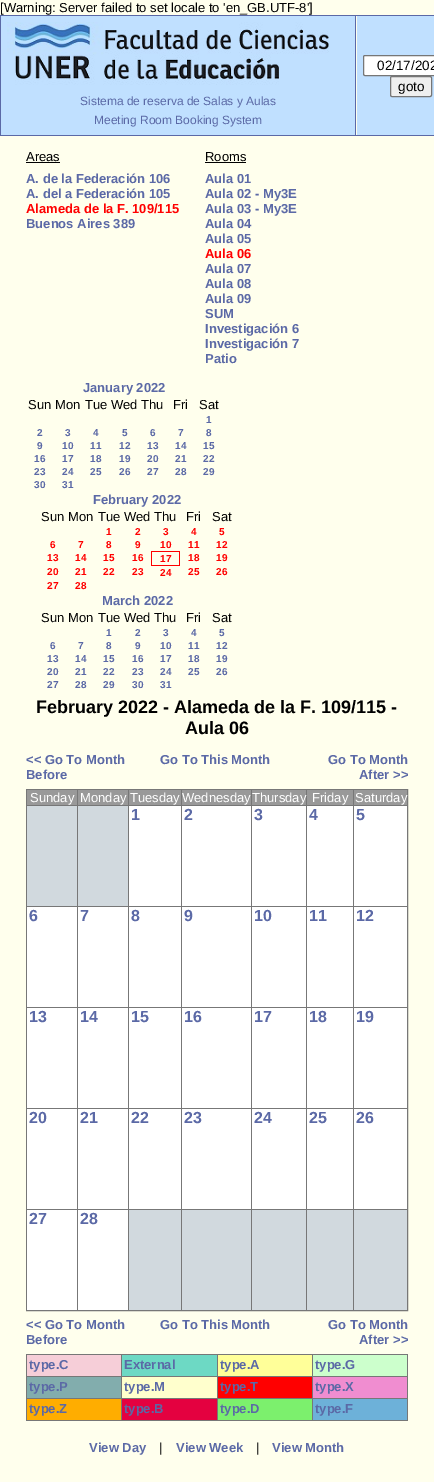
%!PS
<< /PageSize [434 1482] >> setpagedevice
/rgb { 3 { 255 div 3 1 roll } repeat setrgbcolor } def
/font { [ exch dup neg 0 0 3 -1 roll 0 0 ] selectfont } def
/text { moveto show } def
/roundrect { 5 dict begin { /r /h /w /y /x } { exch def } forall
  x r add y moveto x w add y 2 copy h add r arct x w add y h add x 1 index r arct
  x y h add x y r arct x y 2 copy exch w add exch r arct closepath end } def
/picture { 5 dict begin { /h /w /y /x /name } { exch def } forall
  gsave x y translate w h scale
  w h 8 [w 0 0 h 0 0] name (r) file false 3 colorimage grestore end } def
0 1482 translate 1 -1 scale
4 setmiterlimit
255 255 237 rgb
0 0 434 1482 rectfill
91 105 166 rgb
0 15 434 1 rectfill
0 135 434 1 rectfill
0 15 1 121 rectfill
192 224 255 rgb
357 16 77 119 rectfill
91 105 166 rgb
355 15 1 121 rectfill
255 255 255 rgb
363.5 55.5 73 20 1.5 roundrect gsave fill grestore
118 118 118 rgb
stroke
239 239 239 rgb
390.5 76.5 41 20 1.5 roundrect gsave fill grestore
118 118 118 rgb
stroke
192 224 255 rgb
1 16 354 119 rectfill
(img_01.rgb) 7 22 322 63 picture
0 0 0 rgb
26 162 34 1 rectfill
205 162 41 1 rectfill
255 0 0 rgb
151 551 29 1 rectfill
179 551 1 15 rectfill
151 565 29 1 rectfill
151 551 1 15 rectfill
119 119 119 rgb
26.5 789.5 381 521 rectstroke
153 153 153 rgb
27 790 50 15 rectfill
78 790 50 15 rectfill
119 119 119 rgb
77 790 1 15 rectfill
153 153 153 rgb
129 790 52 15 rectfill
119 119 119 rgb
128 790 1 15 rectfill
153 153 153 rgb
182 790 69 15 rectfill
119 119 119 rgb
181 790 1 15 rectfill
153 153 153 rgb
252 790 54 15 rectfill
119 119 119 rgb
251 790 1 15 rectfill
153 153 153 rgb
307 790 46 15 rectfill
119 119 119 rgb
306 790 1 15 rectfill
153 153 153 rgb
354 790 53 15 rectfill
119 119 119 rgb
353 790 1 15 rectfill
209 217 222 rgb
27 806 50 100 rectfill
119 119 119 rgb
27 805 380 1 rectfill
209 217 222 rgb
78 806 50 100 rectfill
119 119 119 rgb
77 805 1 101 rectfill
255 255 255 rgb
129 806 52 100 rectfill
119 119 119 rgb
128 805 1 101 rectfill
255 255 255 rgb
182 806 69 100 rectfill
119 119 119 rgb
181 805 1 101 rectfill
255 255 255 rgb
252 806 54 100 rectfill
119 119 119 rgb
251 805 1 101 rectfill
255 255 255 rgb
307 806 46 100 rectfill
119 119 119 rgb
306 805 1 101 rectfill
255 255 255 rgb
354 806 53 100 rectfill
119 119 119 rgb
353 805 1 101 rectfill
255 255 255 rgb
27 907 50 100 rectfill
119 119 119 rgb
27 906 380 1 rectfill
255 255 255 rgb
78 907 50 100 rectfill
119 119 119 rgb
77 906 1 101 rectfill
255 255 255 rgb
129 907 52 100 rectfill
119 119 119 rgb
128 906 1 101 rectfill
255 255 255 rgb
182 907 69 100 rectfill
119 119 119 rgb
181 906 1 101 rectfill
255 255 255 rgb
252 907 54 100 rectfill
119 119 119 rgb
251 906 1 101 rectfill
255 255 255 rgb
307 907 46 100 rectfill
119 119 119 rgb
306 906 1 101 rectfill
255 255 255 rgb
354 907 53 100 rectfill
119 119 119 rgb
353 906 1 101 rectfill
255 255 255 rgb
27 1008 50 100 rectfill
119 119 119 rgb
27 1007 380 1 rectfill
255 255 255 rgb
78 1008 50 100 rectfill
119 119 119 rgb
77 1007 1 101 rectfill
255 255 255 rgb
129 1008 52 100 rectfill
119 119 119 rgb
128 1007 1 101 rectfill
255 255 255 rgb
182 1008 69 100 rectfill
119 119 119 rgb
181 1007 1 101 rectfill
255 255 255 rgb
252 1008 54 100 rectfill
119 119 119 rgb
251 1007 1 101 rectfill
255 255 255 rgb
307 1008 46 100 rectfill
119 119 119 rgb
306 1007 1 101 rectfill
255 255 255 rgb
354 1008 53 100 rectfill
119 119 119 rgb
353 1007 1 101 rectfill
255 255 255 rgb
27 1109 50 100 rectfill
119 119 119 rgb
27 1108 380 1 rectfill
255 255 255 rgb
78 1109 50 100 rectfill
119 119 119 rgb
77 1108 1 101 rectfill
255 255 255 rgb
129 1109 52 100 rectfill
119 119 119 rgb
128 1108 1 101 rectfill
255 255 255 rgb
182 1109 69 100 rectfill
119 119 119 rgb
181 1108 1 101 rectfill
255 255 255 rgb
252 1109 54 100 rectfill
119 119 119 rgb
251 1108 1 101 rectfill
255 255 255 rgb
307 1109 46 100 rectfill
119 119 119 rgb
306 1108 1 101 rectfill
255 255 255 rgb
354 1109 53 100 rectfill
119 119 119 rgb
353 1108 1 101 rectfill
255 255 255 rgb
27 1210 50 100 rectfill
119 119 119 rgb
27 1209 380 1 rectfill
255 255 255 rgb
78 1210 50 100 rectfill
119 119 119 rgb
77 1209 1 101 rectfill
209 217 222 rgb
129 1210 52 100 rectfill
119 119 119 rgb
128 1209 1 101 rectfill
209 217 222 rgb
182 1210 69 100 rectfill
119 119 119 rgb
181 1209 1 101 rectfill
209 217 222 rgb
252 1210 54 100 rectfill
119 119 119 rgb
251 1209 1 101 rectfill
209 217 222 rgb
307 1210 46 100 rectfill
119 119 119 rgb
306 1209 1 101 rectfill
209 217 222 rgb
354 1210 53 100 rectfill
119 119 119 rgb
353 1209 1 101 rectfill
246 206 216 rgb
27 1355 94 21 rectfill
119 119 119 rgb
312 1354 96 1 rectfill
312 1376 96 1 rectfill
312 1398 96 1 rectfill
407 1398 1 23 rectfill
312 1420 96 1 rectfill
312 1398 1 23 rectfill
217 1398 96 1 rectfill
312 1376 1 23 rectfill
217 1376 96 1 rectfill
312 1354 1 23 rectfill
217 1354 96 1 rectfill
217 1420 96 1 rectfill
217 1398 1 23 rectfill
121 1398 97 1 rectfill
217 1376 1 23 rectfill
121 1376 97 1 rectfill
217 1354 1 23 rectfill
121 1354 97 1 rectfill
121 1420 97 1 rectfill
121 1398 1 23 rectfill
26 1398 96 1 rectfill
121 1376 1 23 rectfill
26 1376 96 1 rectfill
121 1354 1 23 rectfill
26 1354 96 1 rectfill
26 1420 96 1 rectfill
26 1398 1 23 rectfill
26 1376 1 23 rectfill
26 1354 1 23 rectfill
109 217 196 rgb
122 1355 95 21 rectfill
255 255 153 rgb
218 1355 94 21 rectfill
204 255 204 rgb
313 1355 94 21 rectfill
119 119 119 rgb
407 1376 1 23 rectfill
407 1354 1 23 rectfill
130 173 173 rgb
27 1377 94 21 rectfill
255 255 205 rgb
122 1377 95 21 rectfill
255 0 0 rgb
218 1377 94 21 rectfill
240 141 208 rgb
313 1377 94 21 rectfill
255 173 0 rgb
27 1399 94 21 rectfill
228 1 64 rgb
122 1399 95 21 rectfill
124 240 109 rgb
218 1399 94 21 rectfill
109 177 217 rgb
313 1399 94 21 rectfill
/LiberationSans-Regular 13 font
0 0 0 rgb
([Warning: Server failed to set locale to 'en_GB.UTF-8']) 0 12 text
/LiberationSans-Regular 13.5 font
(02/17/202) 377 70 text
(goto) 398 91 text
/LiberationSans-Regular 12 font
91 105 166 rgb
(Sistema de reserva de Salas y Aulas) 80 105 text
(Meeting Room Booking System) 94 124 text
/LiberationSans-Regular 13 font
0 0 0 rgb
(Areas) 26 161 text
/LiberationSans-Bold 13 font
91 105 166 rgb
(A. de la Federación 106) 26 183 text
(A. del a Federación 105) 26 198 text
255 0 0 rgb
(Alameda de la F. 109/115) 26 213 text
91 105 166 rgb
(Buenos Aires 389) 26 228 text
/LiberationSans-Regular 13 font
0 0 0 rgb
(Rooms) 205 161 text
/LiberationSans-Bold 13 font
91 105 166 rgb
(Aula 01) 205 183 text
(Aula 02 - My3E) 205 198 text
(Aula 03 - My3E) 205 213 text
(Aula 04) 205 228 text
(Aula 05) 205 243 text
255 0 0 rgb
(Aula 06) 205 258 text
91 105 166 rgb
(Aula 07) 205 273 text
(Aula 08) 205 288 text
(Aula 09) 205 303 text
(SUM) 205 318 text
(Investigación 6) 205 333 text
(Investigación 7) 205 348 text
(Patio) 205 363 text
(January 2022) 83 392 text
/LiberationSans-Regular 13 font
0 0 0 rgb
(Sun Mon) 28 409 text
(Tue Wed Thu) 85 409 text
(Fri) 173 409 text
(Sat) 199 409 text
/LiberationSans-Bold 10 font
91 105 166 rgb
(1) 206 423 text
(2) 37 436 text
(3) 65 436 text
(4) 93 436 text
(5) 122 436 text
(6) 150 436 text
(7) 178 436 text
(8) 206 436 text
(9) 37 449 text
(10) 62 449 text
(11) 90 449 text
(12) 119 449 text
(13) 147 449 text
(14) 175 449 text
(15) 203 449 text
(16) 34 462 text
(17) 62 462 text
(18) 90 462 text
(19) 119 462 text
(20) 147 462 text
(21) 175 462 text
(22) 203 462 text
(23) 34 475 text
(24) 62 475 text
(25) 90 475 text
(26) 119 475 text
(27) 147 475 text
(28) 175 475 text
(29) 203 475 text
(30) 34 488 text
(31) 62 488 text
/LiberationSans-Bold 13 font
(February 2022) 93 504 text
/LiberationSans-Regular 13 font
0 0 0 rgb
(Sun Mon) 41 521 text
(Tue Wed Thu) 98 521 text
(Fri) 186 521 text
(Sat) 212 521 text
/LiberationSans-Bold 10 font
255 0 0 rgb
(1) 106 535 text
(2) 135 535 text
(3) 163 535 text
(4) 191 535 text
(5) 219 535 text
(6) 50 548 text
(7) 78 548 text
(8) 106 548 text
(9) 135 548 text
(10) 160 548 text
(11) 188 548 text
(12) 216 548 text
(13) 47 561 text
(14) 75 561 text
(15) 103 561 text
(16) 132 561 text
(17) 160 562 text
(18) 188 561 text
(19) 216 561 text
(20) 47 575 text
(21) 75 575 text
(22) 103 575 text
(23) 132 575 text
(24) 160 576 text
(25) 188 575 text
(26) 216 575 text
(27) 47 589 text
(28) 75 589 text
/LiberationSans-Bold 13 font
91 105 166 rgb
(March 2022) 102 605 text
/LiberationSans-Regular 13 font
0 0 0 rgb
(Sun Mon) 41 622 text
(Tue Wed Thu) 98 622 text
(Fri) 186 622 text
(Sat) 212 622 text
/LiberationSans-Bold 10 font
91 105 166 rgb
(1) 106 636 text
(2) 135 636 text
(3) 163 636 text
(4) 191 636 text
(5) 219 636 text
(6) 50 649 text
(7) 78 649 text
(8) 106 649 text
(9) 135 649 text
(10) 160 649 text
(11) 188 649 text
(12) 216 649 text
(13) 47 662 text
(14) 75 662 text
(15) 103 662 text
(16) 132 662 text
(17) 160 662 text
(18) 188 662 text
(19) 216 662 text
(20) 47 675 text
(21) 75 675 text
(22) 103 675 text
(23) 132 675 text
(24) 160 675 text
(25) 188 675 text
(26) 216 675 text
(27) 47 688 text
(28) 75 688 text
(29) 103 688 text
(30) 132 688 text
(31) 160 688 text
/LiberationSans-Bold 18 font
0 0 0 rgb
(February 2022 - Alameda de la F. 109/115 -) 36 713 text
(Aula 06) 185 734 text
/LiberationSans-Bold 13 font
91 105 166 rgb
(<< Go To Month) 26 764 text
(Before) 26 779 text
(Go To This Month) 160 764 text
(Go To Month) 328 764 text
(After >>) 359 779 text
/LiberationSans-Regular 13 font
255 255 255 rgb
(Sunday) 30 802 text
(Monday) 80 802 text
(Tuesday) 130 802 text
(Wednesday) 182 802 text
(Thursday) 252 802 text
(Friday) 312 802 text
(Saturday) 355 802 text
/LiberationSans-Bold 16 font
91 105 166 rgb
(1) 131 820 text
(2) 184 820 text
(3) 254 820 text
(4) 309 820 text
(5) 356 820 text
(6) 29 921 text
(7) 80 921 text
(8) 131 921 text
(9) 184 921 text
(10) 254 921 text
(11) 309 921 text
(12) 356 921 text
(13) 29 1022 text
(14) 80 1022 text
(15) 131 1022 text
(16) 184 1022 text
(17) 254 1022 text
(18) 309 1022 text
(19) 356 1022 text
(20) 29 1123 text
(21) 80 1123 text
(22) 131 1123 text
(23) 184 1123 text
(24) 254 1123 text
(25) 309 1123 text
(26) 356 1123 text
(27) 29 1224 text
(28) 80 1224 text
/LiberationSans-Bold 13 font
(<< Go To Month) 26 1329 text
(Before) 26 1344 text
(Go To This Month) 160 1329 text
(Go To Month) 328 1329 text
(After >>) 359 1344 text
(type.C) 29 1369 text
(External) 124 1369 text
(type.A) 220 1369 text
(type.G) 315 1369 text
(type.P) 29 1391 text
(type.M) 124 1391 text
(type.T) 220 1391 text
(type.X) 315 1391 text
(type.Z) 29 1413 text
(type.B) 124 1413 text
(type.D) 220 1413 text
(type.F) 315 1413 text
(View Day) 89 1452 text
/LiberationSans-Regular 13 font
0 0 0 rgb
(|) 159 1452 text
/LiberationSans-Bold 13 font
91 105 166 rgb
(View Week) 176 1452 text
/LiberationSans-Regular 13 font
0 0 0 rgb
(|) 256 1452 text
/LiberationSans-Bold 13 font
91 105 166 rgb
(View Month) 272 1452 text
showpage
